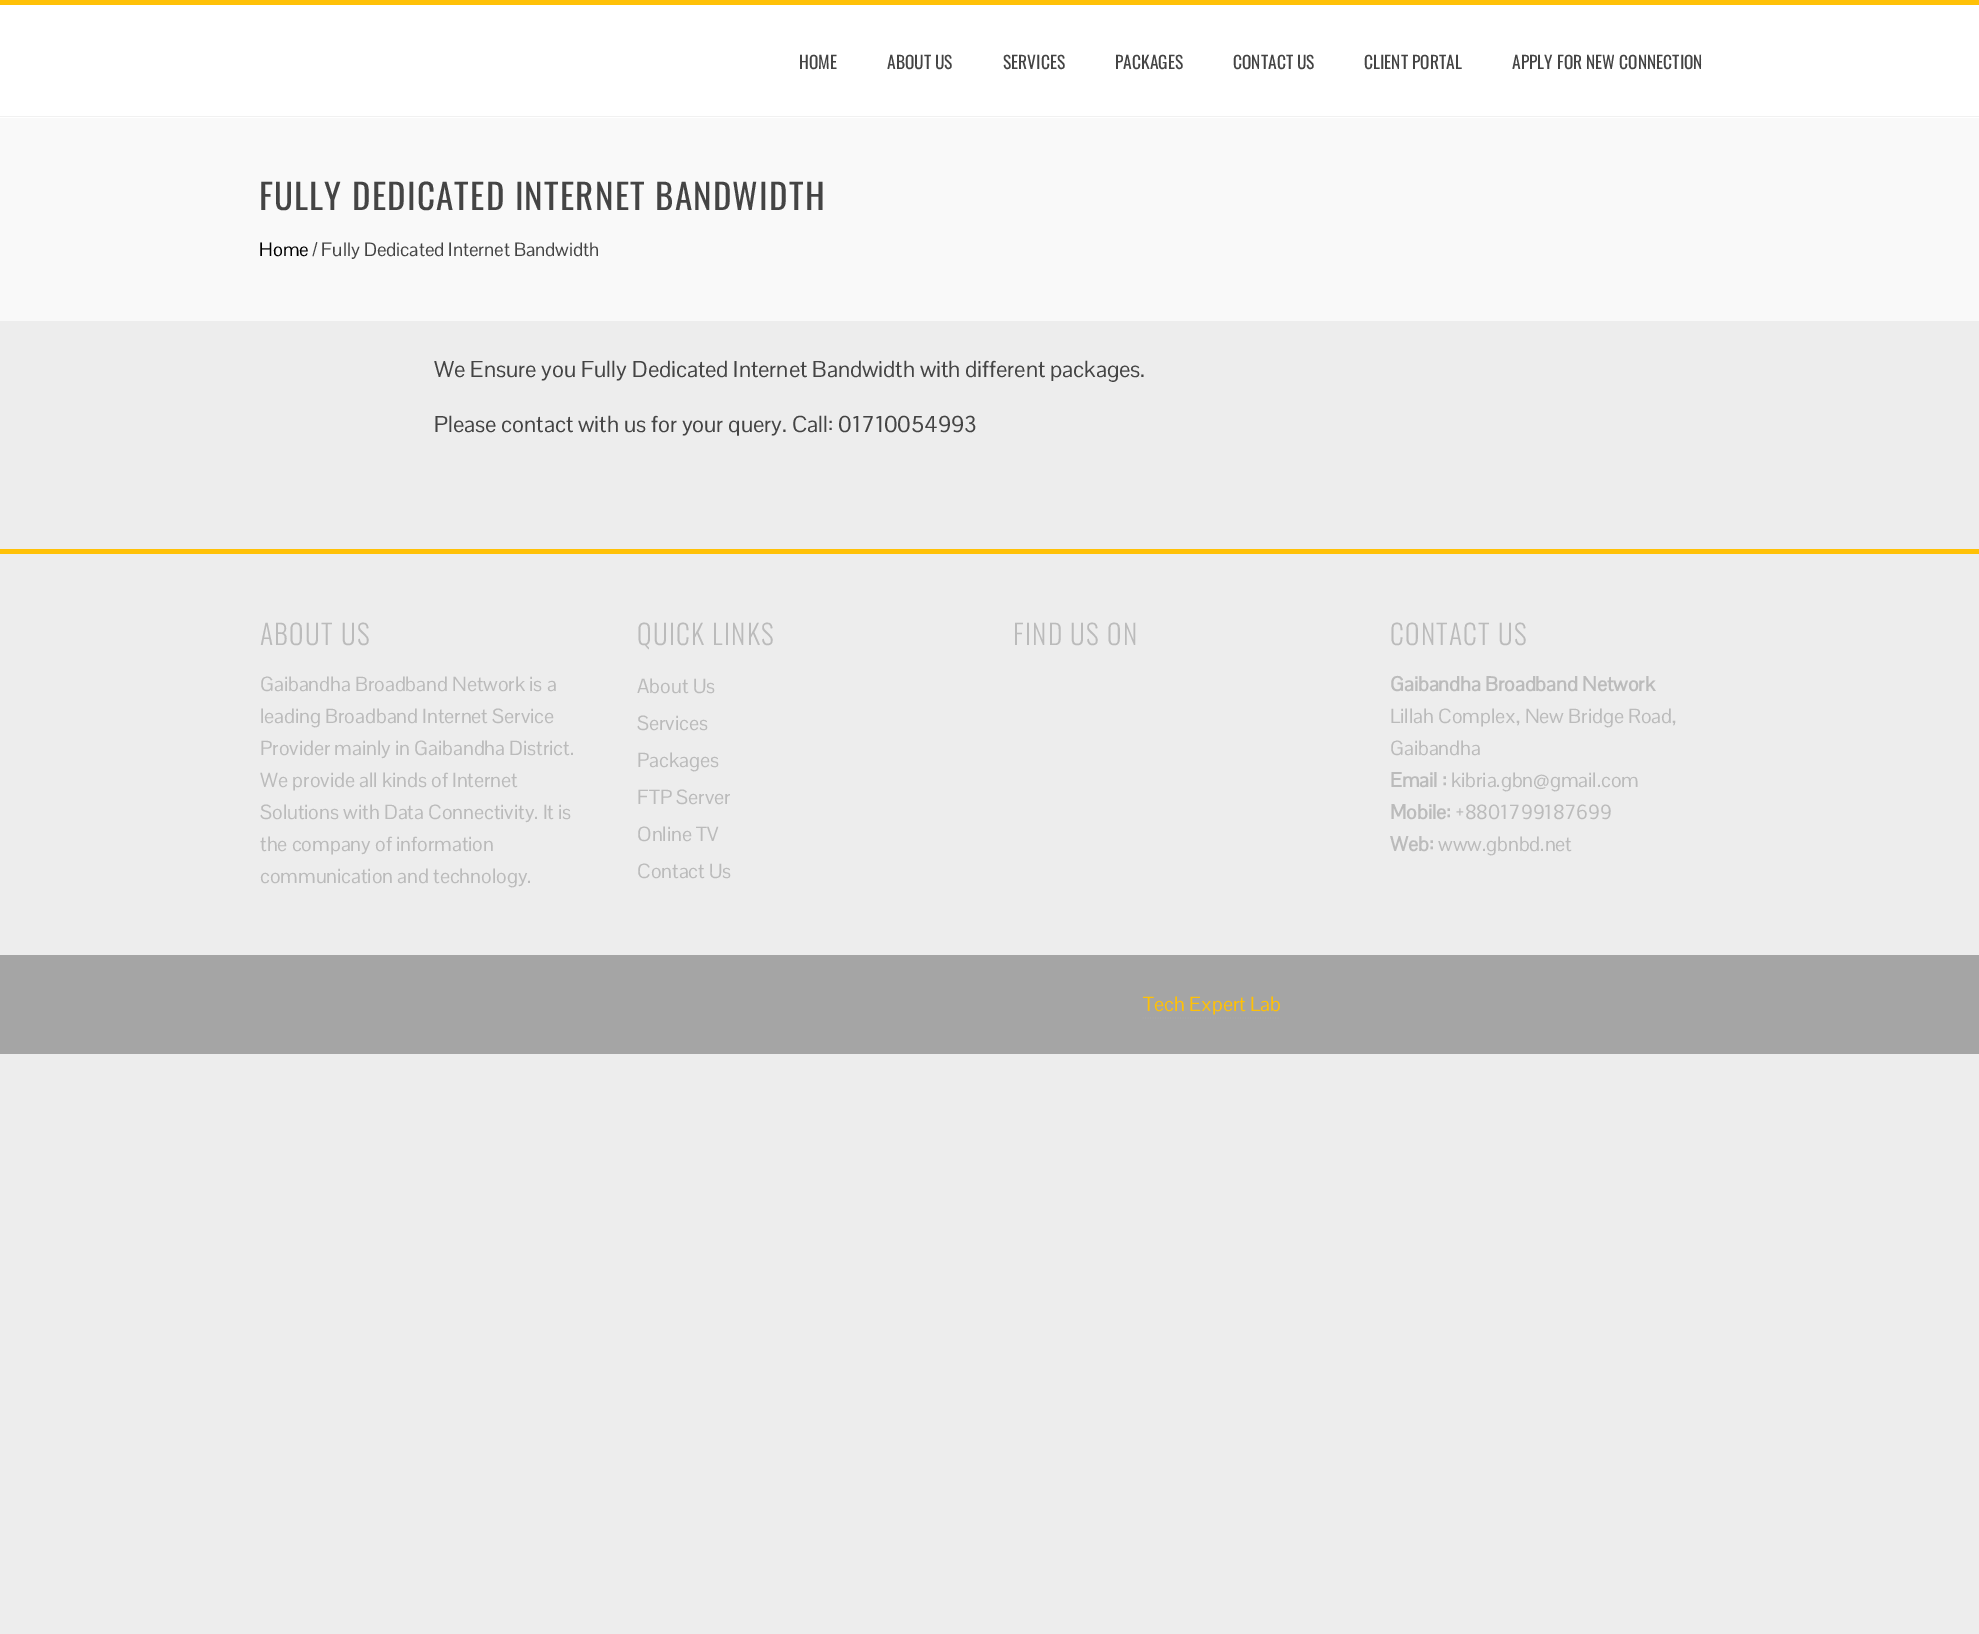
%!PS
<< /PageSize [1979 1634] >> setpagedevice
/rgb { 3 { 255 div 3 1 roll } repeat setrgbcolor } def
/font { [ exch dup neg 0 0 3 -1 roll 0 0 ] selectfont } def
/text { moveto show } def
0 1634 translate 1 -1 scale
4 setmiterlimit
237 237 237 rgb
0 0 1979 1634 rectfill
255 255 255 rgb
0 5 1979 113 rectfill
255 193 7 rgb
0 0 1979 5 rectfill
241 241 241 rgb
0 116 1979 1 rectfill
249 249 249 rgb
0 118 1979 203 rectfill
255 193 7 rgb
0 549 1979 5 rectfill
165 165 165 rgb
0 955 1979 99 rectfill
170 170 170 rgb
1.2 setlinewidth
[1.25 1.25] 0 setdash
1142.5 1018 moveto 137.5 0 rlineto stroke
/Oswald-Regular 17.5 font
68 68 68 rgb
(HOME) 799 69 text
(ABOUT US) 887 69 text
(SERVICES) 1003 69 text
(PACKAGES) 1115 69 text
(CONTACT US) 1233 69 text
(CLIENT PORTAL) 1364 69 text
(APPLY FOR NEW CONNECTION) 1512 69 text
/Oswald-Regular 35 font
259 210 moveto 1.25 0 (FULLY DEDICATED INTERNET BANDWIDTH) ashow
/PontanoSans-Regular 18.75 font
0 0 0 rgb
(Home) 259 256 text
68 68 68 rgb
(/ Fully Dedicated Internet Bandwidth) 312 256 text
/PontanoSans-Regular 22.5 font
(We Ensure you Fully Dedicated Internet Bandwidth with different packages.) 434 377 text
(Please contact with us for your query. Call: 01710054993) 434 432 text
/Oswald-Light 27.5 font
187 187 187 rgb
260 645 moveto 1.25 0 (ABOUT US) ashow
/PontanoSans-Regular 20 font
(Gaibandha Broadband Network is a) 260 691 text
(leading Broadband Internet Service) 260 723 text
(Provider mainly in Gaibandha District.) 260 755 text
(We provide all kinds of Internet) 260 787 text
(Solutions with Data Connectivity. It is) 260 819 text
(the company of information) 260 851 text
(communication and technology.) 260 883 text
/Oswald-Light 27.5 font
637 645 moveto 1.25 0 (QUICK LINKS) ashow
/PontanoSans-Regular 20 font
(About Us) 637 693 text
(Services) 637 730 text
(Packages) 637 767 text
(FTP Server) 637 804 text
(Online TV) 637 841 text
(Contact Us) 637 878 text
/Oswald-Light 27.5 font
1013 645 moveto 1.25 0 (FIND US ON) ashow
1390 645 moveto 1.25 0 (CONTACT US) ashow
/PontanoSans-Bold 20 font
(Gaibandha Broadband Network) 1390 691 text
/PontanoSans-Regular 20 font
(Lillah Complex, New Bridge Road,) 1390 723 text
(Gaibandha) 1390 755 text
/PontanoSans-Bold 20 font
(Email :) 1390 787 text
/PontanoSans-Regular 20 font
(kibria.gbn@gmail.com) 1451 787 text
/PontanoSans-Bold 20 font
(Mobile:) 1390 819 text
/PontanoSans-Regular 20 font
(+8801799187699) 1455 819 text
/PontanoSans-Bold 20 font
(Web:) 1390 851 text
/PontanoSans-Regular 20 font
(www.gbnbd.net) 1438 851 text
255 193 7 rgb
(Tech Expert Lab) 1143 1011 text
showpage
